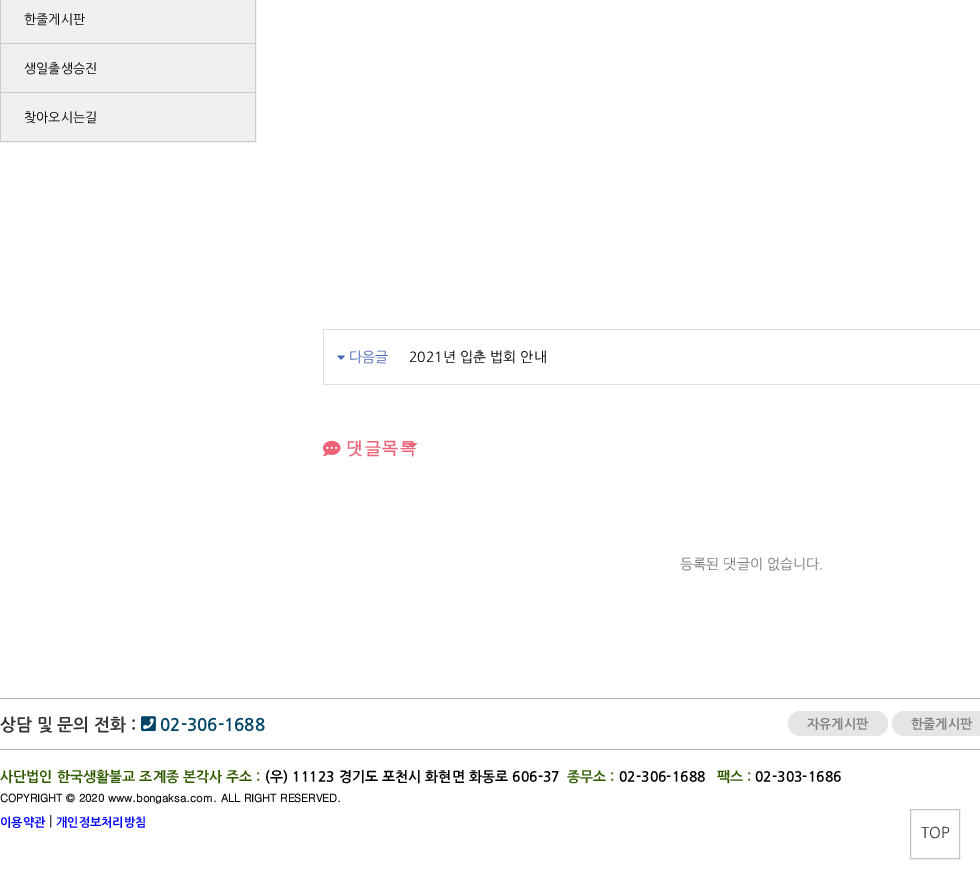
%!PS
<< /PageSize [980 879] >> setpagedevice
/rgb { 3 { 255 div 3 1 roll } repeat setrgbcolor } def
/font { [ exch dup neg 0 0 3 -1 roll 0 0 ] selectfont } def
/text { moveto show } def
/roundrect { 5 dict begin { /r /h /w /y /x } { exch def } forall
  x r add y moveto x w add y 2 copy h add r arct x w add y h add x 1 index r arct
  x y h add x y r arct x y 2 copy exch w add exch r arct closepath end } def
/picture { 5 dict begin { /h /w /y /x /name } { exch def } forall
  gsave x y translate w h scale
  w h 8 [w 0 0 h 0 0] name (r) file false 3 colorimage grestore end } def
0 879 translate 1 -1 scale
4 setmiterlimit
255 255 255 rgb
0 0 980 879 rectfill
203 203 203 rgb
0.5 -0.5 255 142 rectstroke
240 240 240 rgb
1 0 254 141 rectfill
203 203 203 rgb
1 43 254 1 rectfill
1 92 254 1 rectfill
221 221 221 rgb
323 384 657 1 rectfill
323 329 657 1 rectfill
323 329 1 55 rectfill
(img_01.rgb) 337 355 8 5 picture
(img_02.rgb) 408 443 9 5 picture
(img_03.rgb) 323 440 18 17 picture
195 195 195 rgb
910.5 809.5 49 49 rectstroke
181 181 181 rgb
0 698 980 1 rectfill
(img_04.rgb) 141 716 15 16 picture
228 229 230 rgb
788 711 100 25 12.5 roundrect fill
892 711 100 25 12.5 roundrect fill
181 181 181 rgb
0 749 980 1 rectfill
/NanumGothic-Regular 13 font
0 0 0 rgb
(한줄게시판) 24 24 text
(생일출생승진) 24 73 text
(찾아오시는길) 24 122 text
/NanumGothic-Regular 14 font
69 103 181 rgb
(다음글) 349 362 text
0 0 0 rgb
(2021년 입춘 법회 안내) 409 362 text
/Dotum-Bold 17.5 font
237 100 120 rgb
(댓글목록) 346 455 text
/NanumGothic-Regular 14 font
119 119 119 rgb
(등록된 댓글이 없습니다.) 680 569 text
/NanumGothic-Regular 15 font
52 52 52 rgb
(TOP) 921 838 text
/NanumGothic-Bold 17 font
(상담 및 문의 전화 :) 0 730 text
0 68 102 rgb
(02-306-1688) 160 730 text
/NanumGothic-Bold 13 font
129 129 129 rgb
(자유게시판) 807 728 text
(한줄게시판) 911 728 text
/NanumGothic-Bold 14 font
47 91 0 rgb
(사단법인 한국생활불교 조계종 본각사 주소 :) 0 781 text
0 0 0 rgb
(\(우\) 11123 경기도 포천시 화현면 화동로 606-37) 265 781 text
47 91 0 rgb
(종무소 :) 567 781 text
0 0 0 rgb
(02-306-1688) 619 781 text
47 91 0 rgb
(팩스 :) 717 781 text
0 0 0 rgb
(02-303-1686) 755 781 text
/Dotum-Bold 11 font
(COPYRIGHT © 2020 www.bongaksa.com. ALL RIGHT RESERVED.) 0 802 text
/NanumGothic-Bold 12 font
0 0 255 rgb
(이용약관) 0 826 text
/NanumGothic-Regular 14 font
0 0 0 rgb
(|) 49 826 text
/NanumGothic-Bold 12 font
0 0 255 rgb
(개인정보처리방침) 56 826 text
showpage
